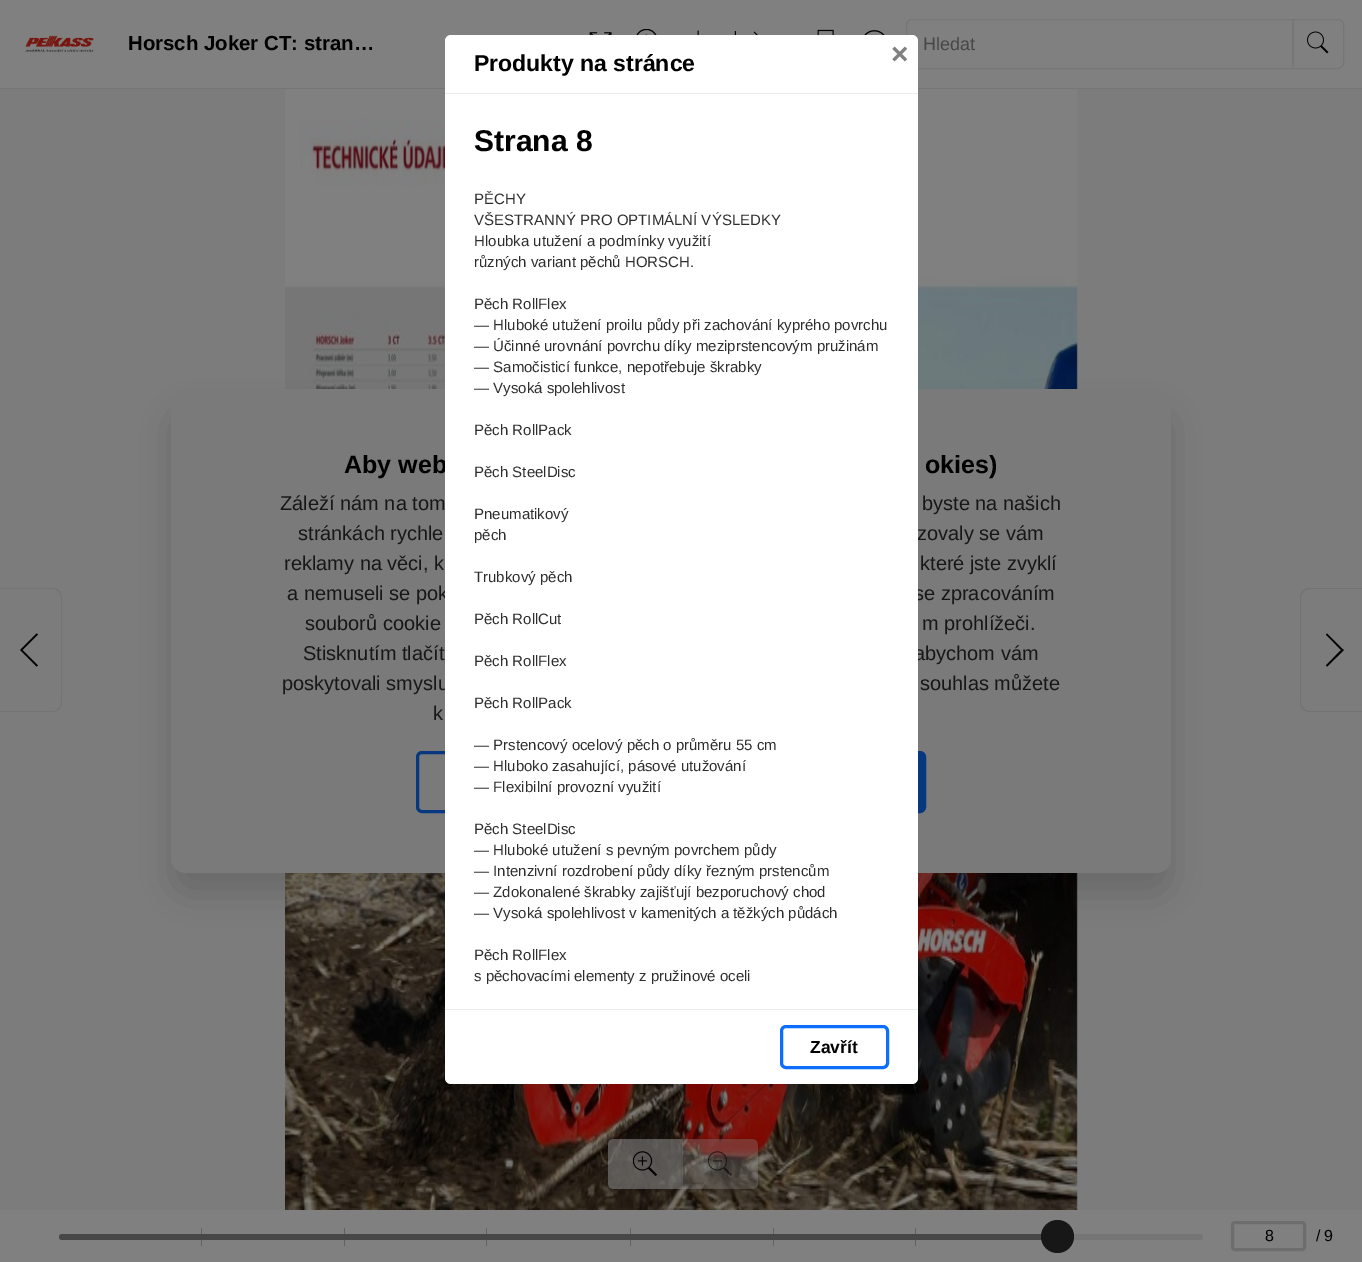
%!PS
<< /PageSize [1362 1262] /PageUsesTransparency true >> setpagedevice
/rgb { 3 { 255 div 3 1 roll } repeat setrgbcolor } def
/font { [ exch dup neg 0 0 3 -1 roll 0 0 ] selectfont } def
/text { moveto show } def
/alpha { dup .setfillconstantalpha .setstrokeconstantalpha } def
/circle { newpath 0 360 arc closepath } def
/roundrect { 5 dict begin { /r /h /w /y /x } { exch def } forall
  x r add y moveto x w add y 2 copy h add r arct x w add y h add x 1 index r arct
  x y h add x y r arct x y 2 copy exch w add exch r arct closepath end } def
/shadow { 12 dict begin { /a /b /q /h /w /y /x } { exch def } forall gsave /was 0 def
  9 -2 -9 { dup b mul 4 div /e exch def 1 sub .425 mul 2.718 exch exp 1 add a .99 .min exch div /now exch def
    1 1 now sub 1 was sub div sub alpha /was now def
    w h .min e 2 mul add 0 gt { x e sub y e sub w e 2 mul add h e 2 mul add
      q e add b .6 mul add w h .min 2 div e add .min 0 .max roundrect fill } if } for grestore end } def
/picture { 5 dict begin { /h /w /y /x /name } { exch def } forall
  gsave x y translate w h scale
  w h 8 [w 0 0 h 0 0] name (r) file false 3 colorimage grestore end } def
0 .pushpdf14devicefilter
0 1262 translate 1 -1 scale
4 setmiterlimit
128 128 128 rgb
0 0 1362 1262 rectfill
118 118 118 rgb
0 88 1362 1 rectfill
(img_01.rgb) 25 35 69 18 picture
(img_02.rgb) 589 32 23 3 picture
(img_03.rgb) 636 29 21 6 picture
(img_04.rgb) 697 30 2 5 picture
(img_05.rgb) 734 31 24 4 picture
(img_06.rgb) 817 29 17 6 picture
(img_07.rgb) 864 30 21 5 picture
906.5 19.5 437 49 5.5 roundrect stroke
1292 68 moveto 0 -48 rlineto 2 2 rlineto 0 43 rlineto closepath fill
(img_08.rgb) 1307 31 22 23 picture
124 124 124 rgb
0 89 1362 1121 rectfill
0 0 0 rgb
36.5 633.5 moveto -16.5 16.5 rlineto 16.5 16.5 rlineto 1.5 -1 rlineto -15.5 -15.5 rlineto 15.5 -15.5 rlineto closepath fill
116 116 116 rgb
0 588 moveto 52 0 rlineto 6 0 10 4 10 10 rcurveto 0 104 rlineto 0 6 -4 10 -10 10 rcurveto -52 0 rlineto closepath 0 589 moveto 52 0 rlineto 5 0 9 4 9 9 rcurveto 0 104 rlineto 0 5 -4 9 -9 9 rcurveto -52 0 rlineto closepath eofill
(img_09.rgb) 285 89 793 1121 picture
0 0 0 rgb
1327 633.5 moveto -1 1 rlineto 15 15.5 rlineto -15 15.5 rlineto 1 1 rlineto 17 -16.5 rlineto -1 -0.5 rlineto closepath fill
0.08 alpha
1310 588 moveto 52 0 rlineto 0 124 rlineto -52 0 rlineto -6 0 -10 -4 -10 -10 rcurveto 0 -104 rlineto 0 -6 4 -10 10 -10 rcurveto closepath 1310 589 moveto 52 0 rlineto 0 122 rlineto -52 0 rlineto -5 0 -9 -4 -9 -9 rcurveto 0 -104 rlineto 0 -5 4 -9 9 -9 rcurveto closepath eofill
606.5 1138.5 152 51 5.5 roundrect stroke
0.6 alpha
128 128 128 rgb
614 1139 moveto 69 0 rlineto 0 50 rlineto -69 0 rlineto -3.5 0 -6 -2.5 -6 -6 rcurveto 0 -38 rlineto 0 -3.5 2.5 -6 6 -6 rcurveto closepath fill
1 alpha
(img_10.rgb) 633 1151 25 25 picture
0.08 alpha
0 0 0 rgb
681 1139 1 50 rectfill
0.36 alpha
128 128 128 rgb
683 1139 moveto 69 0 rlineto 3.5 0 6 2.5 6 6 rcurveto 0 38 rlineto 0 3.5 -2.5 6 -6 6 rcurveto -69 0 rlineto closepath fill
1 alpha
(img_11.rgb) 708 1151 24 25 picture
0 0 0 rgb
171 411 1000 484 15 19 0.15 shadow
122 122 122 rgb
171 389 1000 484 15 roundrect fill
7 55 127 rgb
3 setlinewidth
417.5 752.5 276 59 4.5 roundrect stroke
707.5 752.5 217 59 4.5 roundrect gsave fill grestore
stroke
98 98 98 rgb
201 1228 1 18 rectfill
344 1228 1 18 rectfill
486 1228 1 18 rectfill
630 1228 1 18 rectfill
773 1228 1 18 rectfill
915 1228 1 18 rectfill
117 117 117 rgb
59 1234 1144 6 3 roundrect fill
71 71 71 rgb
62 1234 moveto 997 0 rlineto 0 6 rlineto -997 0 rlineto -1.5 0 -3 -1.5 -3 -3 rcurveto 0 -1.5 1.5 -3 3 -3 rcurveto closepath fill
23 23 23 rgb
1057.5 1236.5 16.5 circle fill
109 109 109 rgb
1232.5 1222.5 72 27 2.5 roundrect stroke
/LiberationSans-Bold 20.4 font
0 0 0 rgb
(Horsch Joker CT: stran…) 128 50 text
/LiberationSans-Regular 18 font
71 71 71 rgb
(Hledat) 923 50 text
/LiberationSans-Bold 25 font
0 0 0 rgb
(Aby web) 344 473 text
(okies\)) 925 473 text
/LiberationSans-Regular 20 font
23 23 23 rgb
(Záleží nám na tom) 280 510 text
(byste na našich) 922 510 text
(stránkách rychle) 298 540 text
(zovaly se vám) 917 540 text
(reklamy na věci, k) 284 570 text
(které jste zvyklí) 920 570 text
(a nemuseli se pok) 287 600 text
(se zpracováním) 914 600 text
(souborů cookie) 305 630 text
(m prohlížeči.) 922 630 text
(Stisknutím tlačít) 303 660 text
(abychom vám) 914 660 text
(poskytovali smyslu) 282 690 text
255 255 255 rgb
445 35 473 1049 6 roundrect fill
/LiberationSans-Bold 30 font
128 128 128 rgb
(×) 891 64 text
/LiberationSans-Regular 15 font
46 46 46 rgb
(s pěchovacími elementy z pružinové oceli) 474 981 text
(Pěch RollFlex) 474 960 text
(― Vysoká spolehlivost v kamenitých a těžkých půdách) 474 918 text
(― Zdokonalené škrabky zajišťují bezporuchový chod) 474 897 text
(― Intenzivní rozdrobení půdy díky řezným prstencům) 474 876 text
(― Hluboké utužení s pevným povrchem půdy) 474 855 text
(Pěch SteelDisc) 474 834 text
(― Flexibilní provozní využití) 474 792 text
(― Hluboko zasahující, pásové utužování) 474 771 text
(― Prstencový ocelový pěch o průměru 55 cm) 474 750 text
(Pěch RollPack) 474 708 text
(Pěch RollFlex) 474 666 text
(Pěch RollCut) 474 624 text
(Trubkový pěch) 474 582 text
(pěch) 474 540 text
(Pneumatikový) 474 519 text
(Pěch SteelDisc) 474 477 text
(Pěch RollPack) 474 435 text
(― Vysoká spolehlivost) 474 393 text
(― Samočisticí funkce, nepotřebuje škrabky) 474 372 text
(― Účinné urovnání povrchu díky meziprstencovým pružinám) 474 351 text
(― Hluboké utužení proilu půdy při zachování kyprého povrchu) 474 330 text
(Pěch RollFlex) 474 309 text
(různých variant pěchů HORSCH.) 474 267 text
(Hloubka utužení a podmínky využití) 474 246 text
(VŠESTRANNÝ PRO OPTIMÁLNÍ VÝSLEDKY) 474 225 text
(PĚCHY) 474 204 text
/LiberationSans-Bold 30 font
0 0 0 rgb
(Strana 8) 474 151 text
13 110 253 rgb
781.5 1026.5 106 41 4.5 roundrect stroke
/LiberationSans-Bold 17.5 font
0 0 0 rgb
(Zavřít) 810 1053 text
233 236 239 rgb
445 1009 473 1 rectfill
/LiberationSans-Bold 23 font
0 0 0 rgb
(Produkty na stránce) 474 71 text
233 236 239 rgb
445 93 473 1 rectfill
/LiberationSans-Regular 20 font
23 23 23 rgb
(souhlas můžete) 920 690 text
(k) 433 720 text
/LiberationSans-Regular 16 font
0 0 0 rgb
(8) 1265 1241 text
(/) 1316 1241 text
(9) 1324 1241 text
.poppdf14devicefilter showpage
